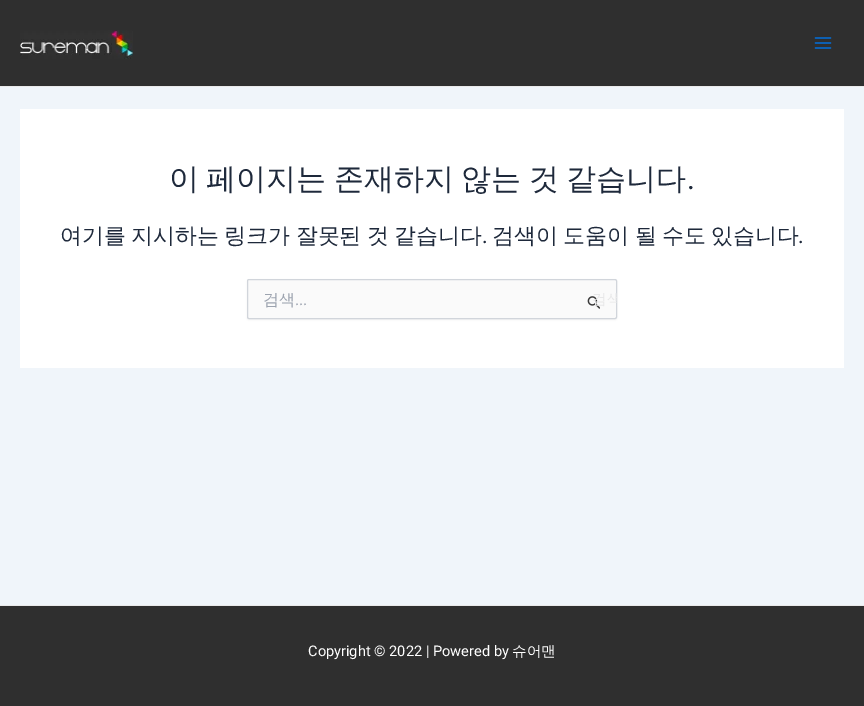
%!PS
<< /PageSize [864 706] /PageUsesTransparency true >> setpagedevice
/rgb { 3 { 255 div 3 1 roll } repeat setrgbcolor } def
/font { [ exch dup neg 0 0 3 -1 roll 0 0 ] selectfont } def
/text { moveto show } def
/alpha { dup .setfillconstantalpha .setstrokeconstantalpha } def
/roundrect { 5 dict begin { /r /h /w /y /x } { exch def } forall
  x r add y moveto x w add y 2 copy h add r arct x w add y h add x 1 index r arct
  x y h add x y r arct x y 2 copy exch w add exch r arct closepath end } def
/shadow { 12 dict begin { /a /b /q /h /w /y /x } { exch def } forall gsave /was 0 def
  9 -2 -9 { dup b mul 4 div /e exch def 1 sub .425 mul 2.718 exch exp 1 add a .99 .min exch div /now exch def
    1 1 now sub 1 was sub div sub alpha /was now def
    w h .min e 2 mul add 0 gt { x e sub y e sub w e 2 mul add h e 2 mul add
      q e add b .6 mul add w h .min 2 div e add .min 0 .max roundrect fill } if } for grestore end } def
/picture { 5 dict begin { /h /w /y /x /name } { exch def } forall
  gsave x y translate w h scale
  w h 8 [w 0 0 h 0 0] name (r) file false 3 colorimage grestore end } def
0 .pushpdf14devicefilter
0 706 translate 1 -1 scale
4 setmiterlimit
240 245 250 rgb
0 0 864 706 rectfill
47 47 47 rgb
0 0 864 86 rectfill
234 234 234 rgb
0 86 864 1 rectfill
(img_01.rgb) 20 30 113 29 picture
(img_02.rgb) 814 37 18 12 picture
255 255 255 rgb
20 109 824 259 rectfill
0 0 0 rgb
247 280 370 40 2 1 0.05 shadow
250 250 250 rgb
247.5 279.5 369 39 1.5 roundrect gsave fill grestore
209 213 219 rgb
stroke
(img_03.rgb) 587 296 13 13 picture
47 47 47 rgb
0 606 864 100 rectfill
234 234 234 rgb
0 605 864 1 rectfill
/WenQuanYiZenHei-Medium 30 font
30 41 59 rgb
169 189 moveto -1.5 0 32 (이 페이지는 존재하지 않는 것 같습니다) widthshow
/Roboto-Regular 30 font
(.) 687 189 text
/WenQuanYiZenHei-Medium 21.9 font
60 243 moveto -1 0 32 (여기를 지시하는 링크가 잘못된 것 같습니다) widthshow
/Roboto-Regular 21.9 font
(.) 482 243 text
/WenQuanYiZenHei-Medium 21.9 font
492 243 moveto -1 0 32 (검색이 도움이 될 수도 있습니다) widthshow
/Roboto-Regular 21.9 font
(.) 798 243 text
/WenQuanYiZenHei-Medium 16 font
156 163 175 rgb
(검색) 263 305 text
/Roboto-Regular 16 font
(...) 295 305 text
gsave
572 279 45 41 2 roundrect clip newpath
/WenQuanYiZenHei-Medium 14.6 font
231 231 232 rgb
(검색) 592 304 text
grestore
/Roboto-Regular 14.6 font
255 255 255 rgb
(Copyright © 2022 | Powered by) 308 656 text
/WenQuanYiZenHei-Medium 14.6 font
(슈어맨) 512 656 text
.poppdf14devicefilter showpage
